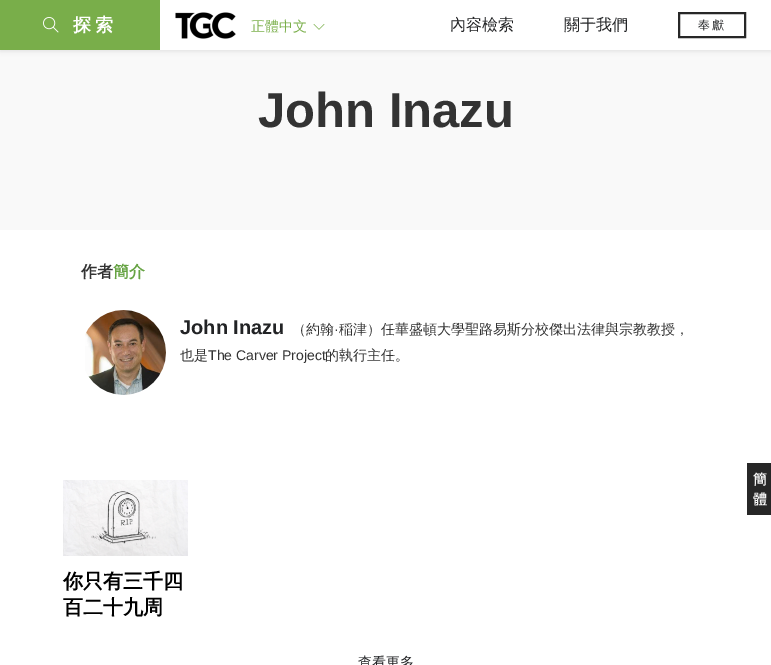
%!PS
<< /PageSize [771 665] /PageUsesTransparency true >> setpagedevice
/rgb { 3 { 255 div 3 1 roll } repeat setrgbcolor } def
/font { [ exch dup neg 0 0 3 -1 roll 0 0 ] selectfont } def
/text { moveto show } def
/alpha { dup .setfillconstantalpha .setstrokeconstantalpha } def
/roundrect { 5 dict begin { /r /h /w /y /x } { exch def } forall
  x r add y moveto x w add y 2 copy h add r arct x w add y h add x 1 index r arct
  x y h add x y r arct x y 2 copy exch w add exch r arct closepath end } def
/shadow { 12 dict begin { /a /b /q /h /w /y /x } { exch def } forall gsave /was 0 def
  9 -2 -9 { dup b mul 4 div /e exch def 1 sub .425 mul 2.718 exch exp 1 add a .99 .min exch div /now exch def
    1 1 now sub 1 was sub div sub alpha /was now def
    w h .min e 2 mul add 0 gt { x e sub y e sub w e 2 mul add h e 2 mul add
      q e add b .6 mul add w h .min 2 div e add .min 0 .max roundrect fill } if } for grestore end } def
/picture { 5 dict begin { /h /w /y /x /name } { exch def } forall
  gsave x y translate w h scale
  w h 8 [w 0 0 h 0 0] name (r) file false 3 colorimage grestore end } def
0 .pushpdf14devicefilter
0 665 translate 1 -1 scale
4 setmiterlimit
255 255 255 rgb
0 0 771 665 rectfill
249 249 249 rgb
0 50 771 180 rectfill
0 0 0 rgb
0 1 771 50 0 2.5 0.1 shadow
255 255 255 rgb
160 0 611 50 rectfill
121 174 74 rgb
0 0 160 50 rectfill
(img_01.rgb) 43 17 16 16 picture
(img_02.rgb) 175 12 61 27 picture
(img_03.rgb) 313 24 12 6 picture
39 39 39 rgb
2 setlinewidth
679 13 66 24 rectstroke
(img_04.rgb) 85 310 81 85 picture
(img_05.rgb) 63 480 125 76 picture
747 463 24 52 rectfill
/WenQuanYiZenHei-Bold 18 font
255 255 255 rgb
73 31 moveto 4 0 (探索) ashow
/WenQuanYiZenHei-Medium 14 font
121 174 74 rgb
(正體中文) 251 31 text
/WenQuanYiZenHei-Medium 16 font
34 35 37 rgb
(內容檢索) 450 30 text
(關于我們) 564 30 text
/WenQuanYiZenHei-Medium 12 font
698 29 moveto 2 0 (奉獻) ashow
/LiberationSans-Bold 49 font
51 51 51 rgb
(John Inazu) 258 127 text
/WenQuanYiZenHei-Bold 16 font
(作者) 81 277 text
102 163 67 rgb
(簡介) 113 277 text
/LiberationSans-Bold 20 font
34 35 37 rgb
(John Inazu) 180 334 text
/WenQuanYiZenHei-Medium 14 font
51 51 51 rgb
(（約翰) 292 334 text
/LiberationSans-Regular 14 font
(·) 334 334 text
/WenQuanYiZenHei-Medium 14 font
(稲津）任華盛頓大學聖路易斯分校傑出法律與宗教教授，) 339 334 text
(也是) 180 360 text
/LiberationSans-Regular 14 font
(The Carver Project) 208 360 text
/WenQuanYiZenHei-Medium 14 font
(的執行主任。) 325 360 text
/WenQuanYiZenHei-Bold 20 font
0 0 0 rgb
(你只有三千四) 63 588 text
(百二十九周) 63 614 text
/WenQuanYiZenHei-Medium 14 font
34 35 37 rgb
(查看更多) 358 667 text
/WenQuanYiZenHei-Bold 14 font
245 245 245 rgb
(簡) 753 484 text
(體) 753 504 text
.poppdf14devicefilter showpage
